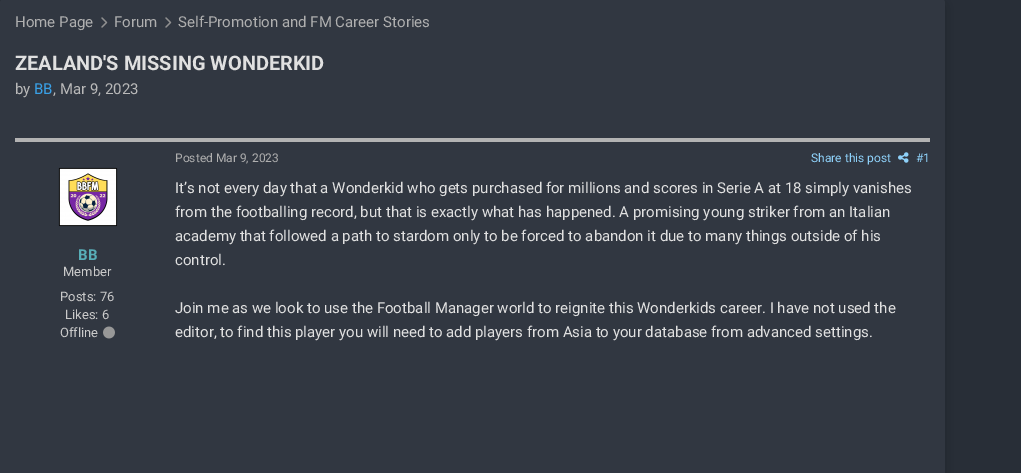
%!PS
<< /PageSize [1021 473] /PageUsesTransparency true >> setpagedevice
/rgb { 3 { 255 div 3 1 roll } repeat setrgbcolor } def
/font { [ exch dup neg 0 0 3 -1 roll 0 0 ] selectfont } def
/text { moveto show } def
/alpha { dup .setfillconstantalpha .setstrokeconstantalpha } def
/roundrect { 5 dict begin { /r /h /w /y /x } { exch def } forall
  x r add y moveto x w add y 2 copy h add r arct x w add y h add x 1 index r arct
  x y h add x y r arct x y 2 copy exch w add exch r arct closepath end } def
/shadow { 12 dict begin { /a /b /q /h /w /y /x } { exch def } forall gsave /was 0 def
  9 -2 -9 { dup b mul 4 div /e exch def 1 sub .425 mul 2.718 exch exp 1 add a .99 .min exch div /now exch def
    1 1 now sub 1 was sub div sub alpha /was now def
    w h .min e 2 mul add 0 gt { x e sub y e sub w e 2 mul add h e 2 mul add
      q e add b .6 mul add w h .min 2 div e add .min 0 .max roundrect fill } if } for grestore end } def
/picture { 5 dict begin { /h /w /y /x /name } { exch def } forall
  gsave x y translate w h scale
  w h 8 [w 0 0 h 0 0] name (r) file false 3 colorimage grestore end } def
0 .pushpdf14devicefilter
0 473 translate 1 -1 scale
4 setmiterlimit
40 46 55 rgb
0 0 1021 473 rectfill
0 0 0 rgb
0 2 945 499 5 7.5 0.2 shadow
49 55 65 rgb
0 -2 945 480 5 roundrect fill
(img_01.rgb) 101 17 7 11 picture
(img_01.rgb) 165 17 7 11 picture
179 179 179 rgb
15 138 915 4 rectfill
(img_02.rgb) 58 167 60 60 picture
(img_03.rgb) 103 326 12 13 picture
(img_04.rgb) 898 152 11 11 picture
/Roboto-Regular 15 font
175 175 175 rgb
(Home Page) 15 27 text
(Forum) 114 27 text
(Self-Promotion and FM Career Stories) 178 27 text
/Roboto-Bold 20 font
224 224 224 rgb
(ZEALAND'S MISSING WONDERKID) 15 70 text
/Roboto-Regular 15 font
185 185 185 rgb
(by) 15 94 text
57 160 230 rgb
(BB) 34 94 text
185 185 185 rgb
(, Mar 9, 2023) 53 94 text
/Roboto-Bold 15 font
88 174 183 rgb
(BB) 78 260 text
/Roboto-Regular 13 font
202 202 202 rgb
(Member) 63 276 text
(Posts: 76) 60 301 text
(Likes: 6) 65 319 text
(Offline) 60 337 text
/Roboto-Regular 12 font
175 175 175 rgb
(Posted Mar 9, 2023) 175 162 text
142 209 249 rgb
(Share this post) 811 162 text
(#1) 916 162 text
/Roboto-Regular 15 font
224 224 224 rgb
(It’s not every day that a Wonderkid who gets purchased for millions and scores in Serie A at 18 simply vanishes) 175 193 text
(from the footballing record, but that is exactly what has happened. A promising young striker from an Italian) 175 217 text
(academy that followed a path to stardom only to be forced to abandon it due to many things outside of his) 175 241 text
(control.) 175 265 text
(Join me as we look to use the Football Manager world to reignite this Wonderkids career. I have not used the) 175 313 text
(editor, to find this player you will need to add players from Asia to your database from advanced settings.) 175 337 text
.poppdf14devicefilter showpage
